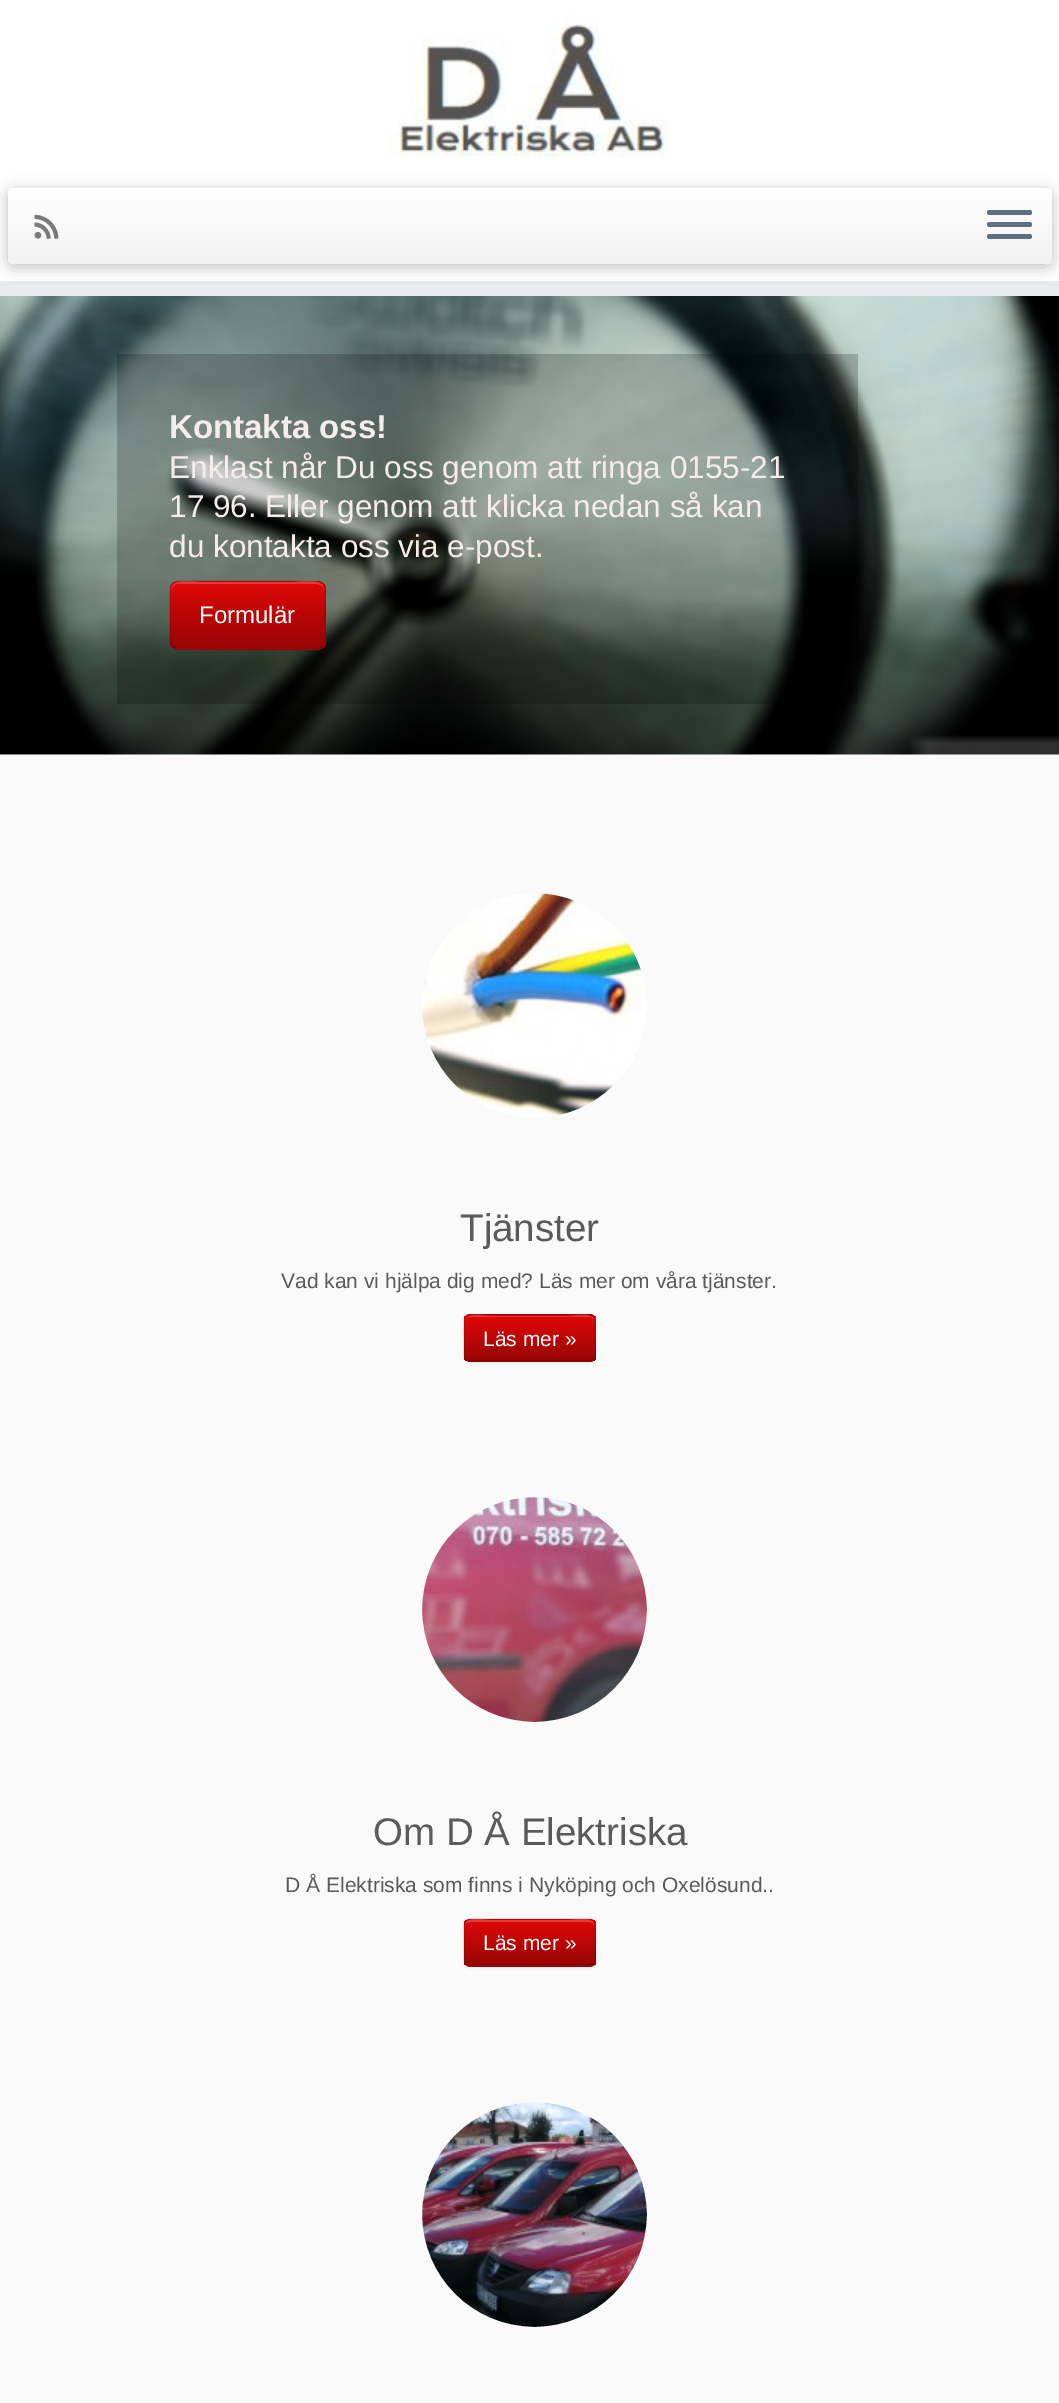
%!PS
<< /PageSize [1059 2403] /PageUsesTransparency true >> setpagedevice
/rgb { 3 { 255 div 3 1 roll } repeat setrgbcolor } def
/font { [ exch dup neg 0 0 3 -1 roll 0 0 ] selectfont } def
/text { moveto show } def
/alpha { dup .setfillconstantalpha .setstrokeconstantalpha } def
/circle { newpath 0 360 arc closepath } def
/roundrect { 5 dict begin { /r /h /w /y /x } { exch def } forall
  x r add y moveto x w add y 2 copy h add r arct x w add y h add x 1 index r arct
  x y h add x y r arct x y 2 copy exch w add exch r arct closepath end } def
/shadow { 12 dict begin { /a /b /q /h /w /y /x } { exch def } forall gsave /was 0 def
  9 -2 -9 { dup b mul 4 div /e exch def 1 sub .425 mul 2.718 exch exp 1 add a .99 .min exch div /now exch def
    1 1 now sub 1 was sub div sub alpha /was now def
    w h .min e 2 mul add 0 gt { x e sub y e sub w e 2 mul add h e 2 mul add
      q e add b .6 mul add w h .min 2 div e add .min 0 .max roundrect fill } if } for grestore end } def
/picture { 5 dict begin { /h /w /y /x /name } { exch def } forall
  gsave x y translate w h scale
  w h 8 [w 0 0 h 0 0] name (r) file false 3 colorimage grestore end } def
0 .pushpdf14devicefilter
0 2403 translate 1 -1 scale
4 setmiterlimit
250 250 250 rgb
0 0 1059 2403 rectfill
255 255 255 rgb
0 0 1059 281 rectfill
233 234 238 rgb
0 281 1059 15 rectfill
(img_01.rgb) 387 15 282 142 picture
0 0 0 rgb
8 191 1044 76 6 7.5 0.25 shadow
gsave 8 188 1044 76 6 roundrect clip newpath
<< /ShadingType 2 /ColorSpace /DeviceRGB /Coords [530 187 530 264] /Extend [true true] /Function << /FunctionType 2 /Domain [0 1] /C0 [1 1 1] /C1 [0.949 0.949 0.949] /N 1 >> >> shfill grestore
(img_02.rgb) 34 214 25 25 picture
95 111 129 rgb
987 210 45 5 2.5 roundrect fill
987 222 45 5 2.5 roundrect fill
987 234 45 5 2.5 roundrect fill
(img_03.rgb) 0 296 1059 459 picture
0.2 alpha
0 0 0 rgb
117 354 741 350 rectfill
1 alpha
195 6 6 rgb
170 581 156 69 9 roundrect fill
gsave
170 581 156 69 9 roundrect clip newpath
gsave 170 582 moveto 156 0 rlineto 0 66 rlineto -156 0 rlineto closepath clip newpath
<< /ShadingType 2 /ColorSpace /DeviceRGB /Coords [248 582 248 648] /Extend [true true] /Function << /FunctionType 2 /Domain [0 1] /C0 [0.882 0.027 0.027] /C1 [0.592 0.02 0.02] /N 1 >> >> shfill grestore
grestore
0.2 alpha
255 255 255 rgb
178 584 moveto 138 0 rlineto 5 0 8 3 8 7 rcurveto 0 -15 -24 -9 -31 -9 rcurveto -91 0 rlineto -7 0 -31 -6 -31 9 rcurveto 0 -4 3 -7 7 -7 rcurveto closepath fill
0.25 alpha
0 0 0 rgb
1.5 setlinewidth
322.5 646.5 moveto -1.5 1.5 -4 2.5 -6 2.5 rcurveto -138 0 rlineto -2 0 -4.5 -1 -6 -2.5 rcurveto stroke
0.1 alpha
172.5 646.5 moveto -3.5 -4 -2.5 -10 -2.5 -14.5 rcurveto 0 -17 rlineto 0 -37 -5.5 -34 31.5 -34 rcurveto 92 0 rlineto 37 0 31.5 -3 31.5 34 rcurveto 0 17 rlineto 0 4.5 1 10.5 -2.5 14.5 rcurveto stroke
1 alpha
(img_04.rgb) 422 893 225 225 picture
464 1316 132 48 6 1.5 0.05 shadow
195 6 6 rgb
464 1314 132 48 6 roundrect fill
gsave
464 1314 132 48 6 roundrect clip newpath
gsave 464 1316 moveto 132 0 rlineto 0 45 rlineto -132 0 rlineto closepath clip newpath
<< /ShadingType 2 /ColorSpace /DeviceRGB /Coords [530 1316 530 1361] /Extend [true true] /Function << /FunctionType 2 /Domain [0 1] /C0 [0.882 0.027 0.027] /C1 [0.592 0.02 0.02] /N 1 >> >> shfill grestore
grestore
0.2 alpha
255 255 255 rgb
470 1317 moveto 120 0 rlineto 2 0 4 2 4 5 rcurveto 0 -11 -21 -6 -25 -6 rcurveto -79 0 rlineto -4 0 -25 -5 -25 6 rcurveto 0 -3 2 -5 5 -5 rcurveto closepath fill
0.25 alpha
0 0 0 rgb
593 1359.5 moveto -3 1.5 rlineto -121 0 rlineto -3 -1.5 rlineto stroke
0.1 alpha
466 1359.5 moveto -2.5 -2 -2 -6.5 -2 -9.5 rcurveto 0 -12 rlineto 0 -27.5 -3.5 -23 25.5 -23 rcurveto 80 0 rlineto 29 0 25.5 -4.5 25.5 23 rcurveto 0 12 rlineto 0 3 0.5 7.5 -2 9.5 rcurveto stroke
1 alpha
(img_05.rgb) 422 1497 225 225 picture
464 1920 132 48 6 1.5 0.05 shadow
195 6 6 rgb
464 1919 132 48 6 roundrect fill
gsave
464 1919 132 48 6 roundrect clip newpath
gsave 464 1920 moveto 132 0 rlineto 0 45 rlineto -132 0 rlineto closepath clip newpath
<< /ShadingType 2 /ColorSpace /DeviceRGB /Coords [530 1920 530 1965] /Extend [true true] /Function << /FunctionType 2 /Domain [0 1] /C0 [0.882 0.027 0.027] /C1 [0.592 0.02 0.02] /N 1 >> >> shfill grestore
grestore
0.2 alpha
255 255 255 rgb
470 1922 moveto 120 0 rlineto 2 0 4 2 4 4 rcurveto 0 -11 -21 -6 -25 -6 rcurveto -79 0 rlineto -4 0 -25 -5 -25 6 rcurveto 0 -2 2 -4 5 -4 rcurveto closepath fill
0.25 alpha
0 0 0 rgb
593 1964 moveto -3 1.5 rlineto -121 0 rlineto -3 -1.5 rlineto stroke
0.1 alpha
466 1964 moveto -2.5 -2 -2 -6.5 -2 -9.5 rcurveto 0 -12 rlineto 0 -27.5 -3.5 -23.5 25.5 -23.5 rcurveto 80 0 rlineto 29 0 25.5 -4 25.5 23.5 rcurveto 0 12 rlineto 0 3 0.5 7.5 -2 9.5 rcurveto stroke
1 alpha
(img_06.rgb) 422 2102 225 225 picture
gsave
378 2027 302 375 rectclip
250 250 250 rgb
141 setlinewidth
534.5 2214.5 183 circle stroke
grestore
/LiberationSans-Bold 33 font
244 237 235 rgb
(Kontakta oss!) 169 438 text
/LiberationSans-Regular 31.5 font
(Enklast når Du oss genom att ringa 0155-21) 169 478 text
(17 96. Eller genom att klicka nedan så kan) 169 517 text
(du kontakta oss via e-post.) 169 557 text
/LiberationSans-Regular 24 font
255 255 255 rgb
(Formulär) 199 623 text
/LiberationSans-Regular 38.5 font
90 90 90 rgb
(Tjänster) 460 1241 text
gsave
378 818 302 375 rectclip
250 250 250 rgb
141 setlinewidth
534.5 1005.5 183 circle stroke
grestore
/LiberationSans-Regular 21 font
(Vad kan vi hjälpa dig med? Läs mer om våra tjänster.) 281 1288 text
255 255 255 rgb
(Läs mer ») 483 1346 text
/LiberationSans-Regular 38.5 font
90 90 90 rgb
(Om D Å Elektriska) 373 1845 text
gsave
378 1422 302 375 rectclip
250 250 250 rgb
141 setlinewidth
534.5 1609.5 183 circle stroke
grestore
/LiberationSans-Regular 21 font
(D Å Elektriska som finns i Nyköping och Oxelösund..) 285 1892 text
255 255 255 rgb
(Läs mer ») 483 1950 text
.poppdf14devicefilter showpage
